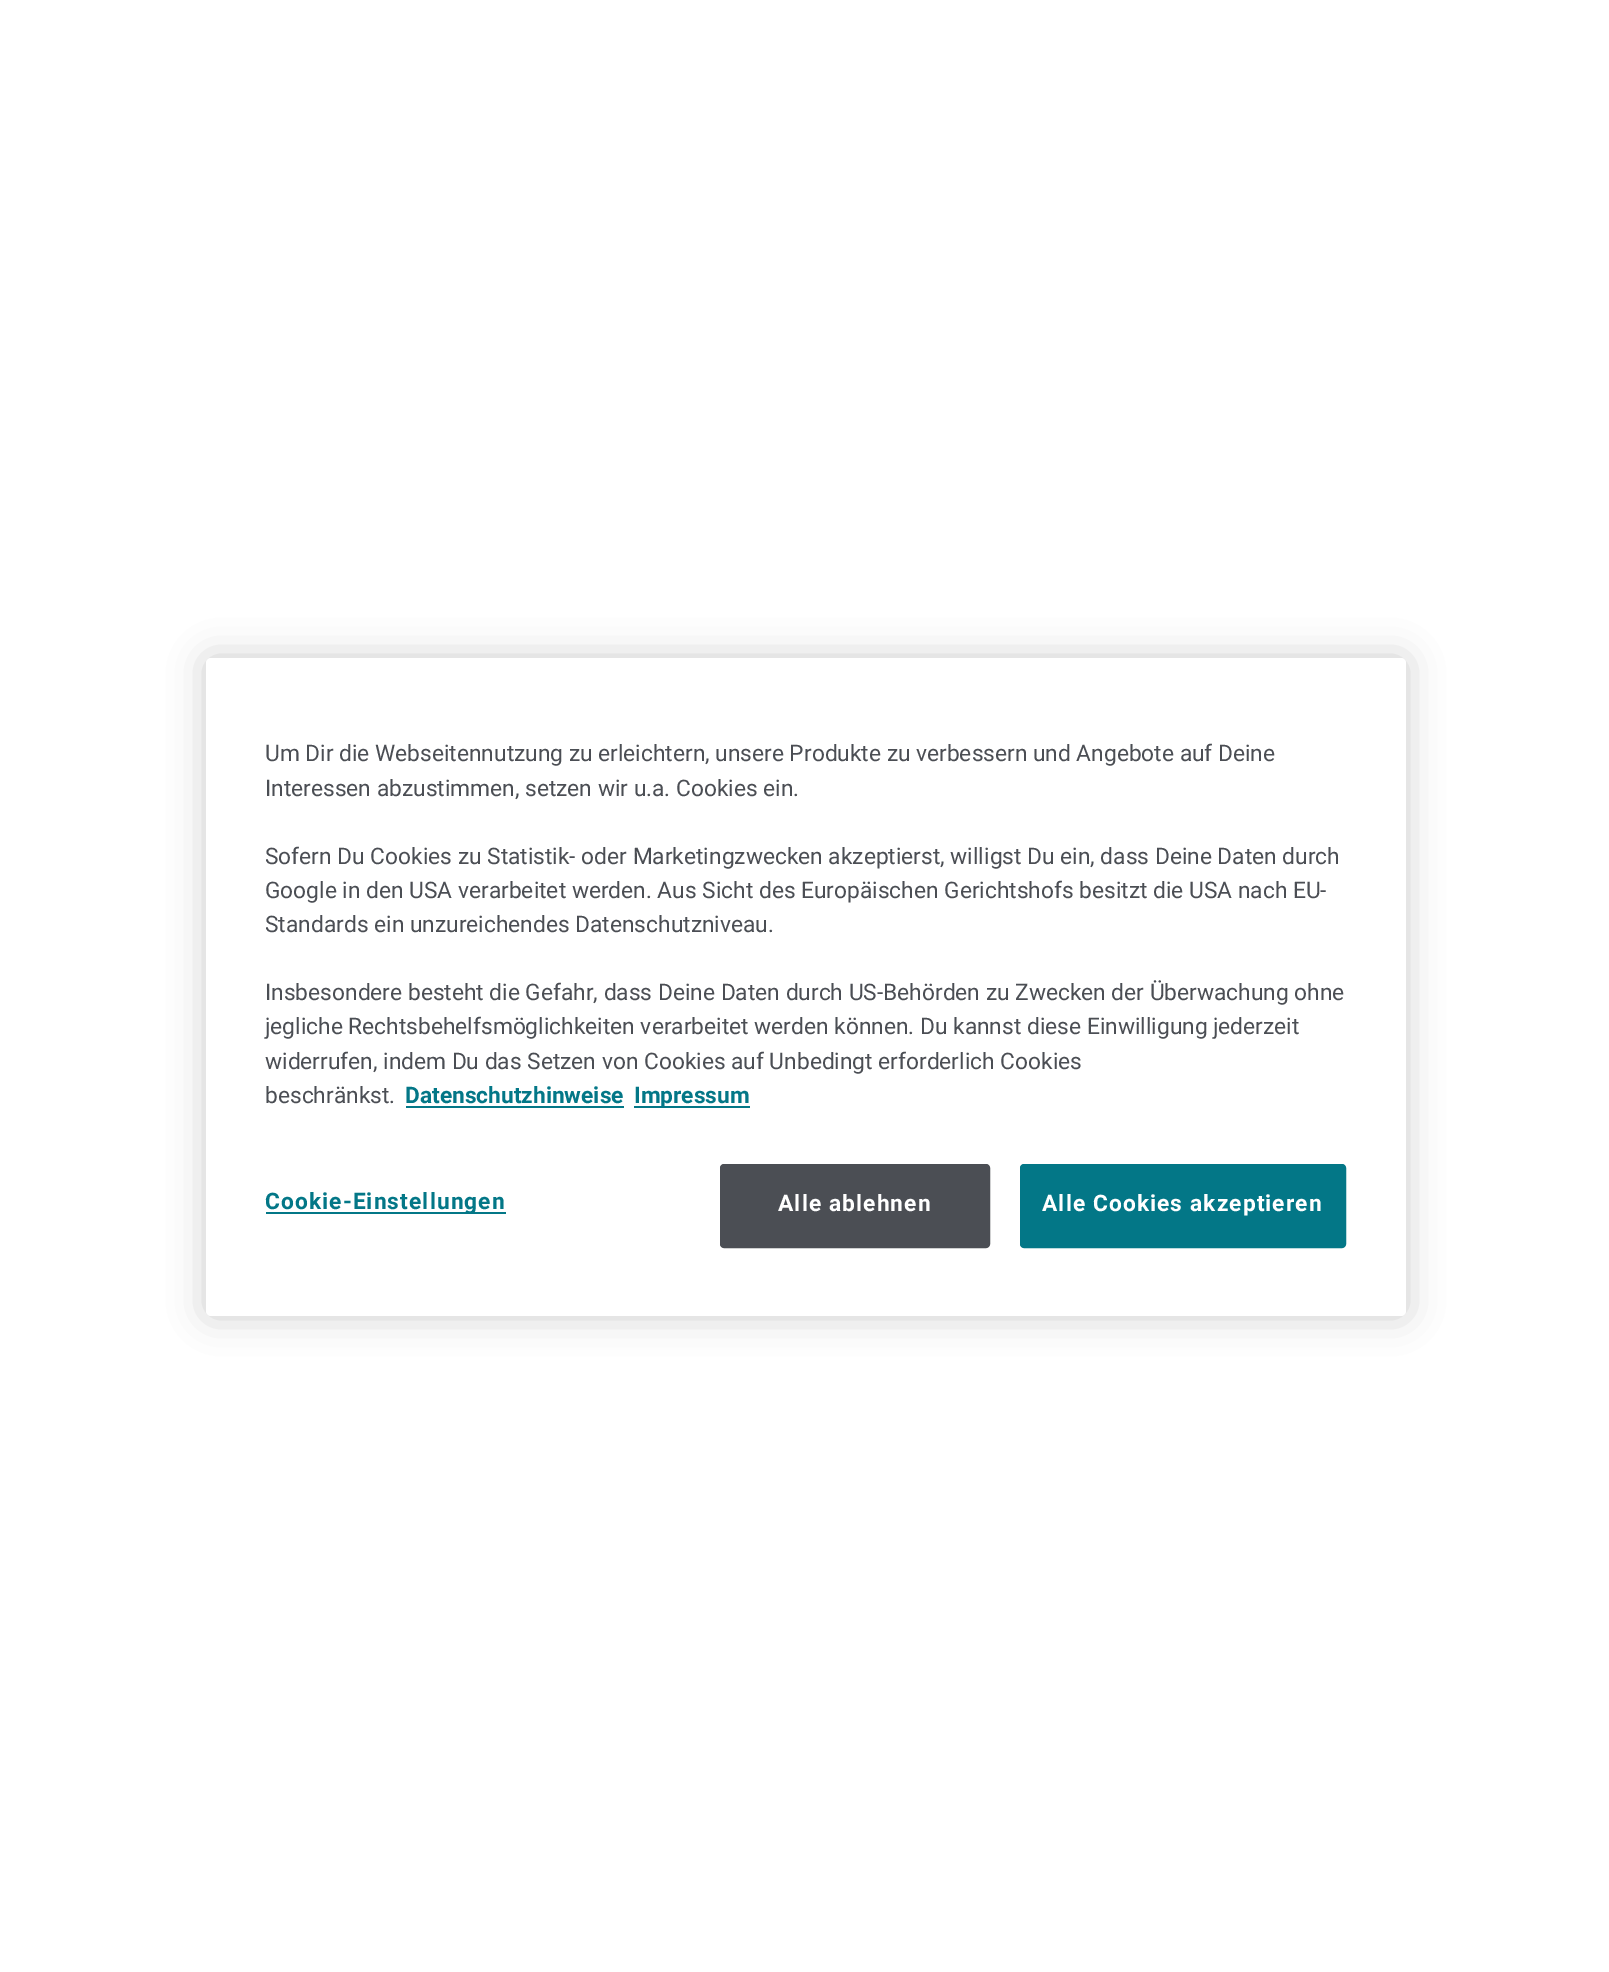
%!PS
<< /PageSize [1609 1972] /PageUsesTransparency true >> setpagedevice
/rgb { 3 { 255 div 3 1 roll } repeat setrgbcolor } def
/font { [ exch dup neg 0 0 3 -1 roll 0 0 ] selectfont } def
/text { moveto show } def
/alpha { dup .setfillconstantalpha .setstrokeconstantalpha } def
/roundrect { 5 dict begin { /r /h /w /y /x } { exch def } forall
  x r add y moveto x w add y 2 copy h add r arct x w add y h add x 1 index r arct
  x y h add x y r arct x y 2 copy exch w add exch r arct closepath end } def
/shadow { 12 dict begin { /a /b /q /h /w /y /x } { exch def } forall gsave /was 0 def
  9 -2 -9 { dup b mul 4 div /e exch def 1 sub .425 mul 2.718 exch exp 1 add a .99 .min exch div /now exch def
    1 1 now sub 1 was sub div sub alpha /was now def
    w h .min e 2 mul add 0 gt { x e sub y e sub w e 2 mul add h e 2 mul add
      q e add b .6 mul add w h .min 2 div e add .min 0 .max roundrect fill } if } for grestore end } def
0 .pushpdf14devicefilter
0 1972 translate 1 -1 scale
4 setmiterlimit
255 255 255 rgb
0 0 1609 1972 rectfill
0 0 0 rgb
206 658 1200 658 5 18 0.2 shadow
255 255 255 rgb
206 658 1200 658 5 roundrect fill
3 119 135 rgb
406 1106 218 2 rectfill
634 1106 116 2 rectfill
266 1212 240 2 rectfill
75 78 84 rgb
721 1165 268 82 3 roundrect gsave fill grestore
2 setlinewidth
stroke
3 119 135 rgb
1021 1165 324 82 3 roundrect gsave fill grestore
stroke
/Roboto-Regular 22.75 font
75 78 84 rgb
(Um Dir die Webseitennutzung zu erleichtern, unsere Produkte zu verbessern und Angebote auf Deine) 265 761 text
(Interessen abzustimmen, setzen wir u.a. Cookies ein.) 265 796 text
(Sofern Du Cookies zu Statistik- oder Marketingzwecken akzeptierst, willigst Du ein, dass Deine Daten durch) 265 864 text
(Google in den USA verarbeitet werden. Aus Sicht des Europäischen Gerichtshofs besitzt die USA nach EU-) 265 898 text
(Standards ein unzureichendes Datenschutzniveau.) 265 932 text
(Insbesondere besteht die Gefahr, dass Deine Daten durch US-Behörden zu Zwecken der Überwachung ohne) 265 1000 text
(jegliche Rechtsbehelfsmöglichkeiten verarbeitet werden können. Du kannst diese Einwilligung jederzeit) 265 1034 text
(widerrufen, indem Du das Setzen von Cookies auf Unbedingt erforderlich Cookies) 265 1069 text
(beschränkst.) 265 1103 text
/Roboto-Bold 22.75 font
3 119 135 rgb
(Datenschutzhinweise) 405 1103 text
(Impressum) 634 1103 text
265 1209 moveto 1.1 0 (Cookie-Einstellungen) ashow
255 255 255 rgb
778 1211 moveto 1.1 0 (Alle ablehnen) ashow
1042 1211 moveto 1.1 0 (Alle Cookies akzeptieren) ashow
.poppdf14devicefilter showpage
